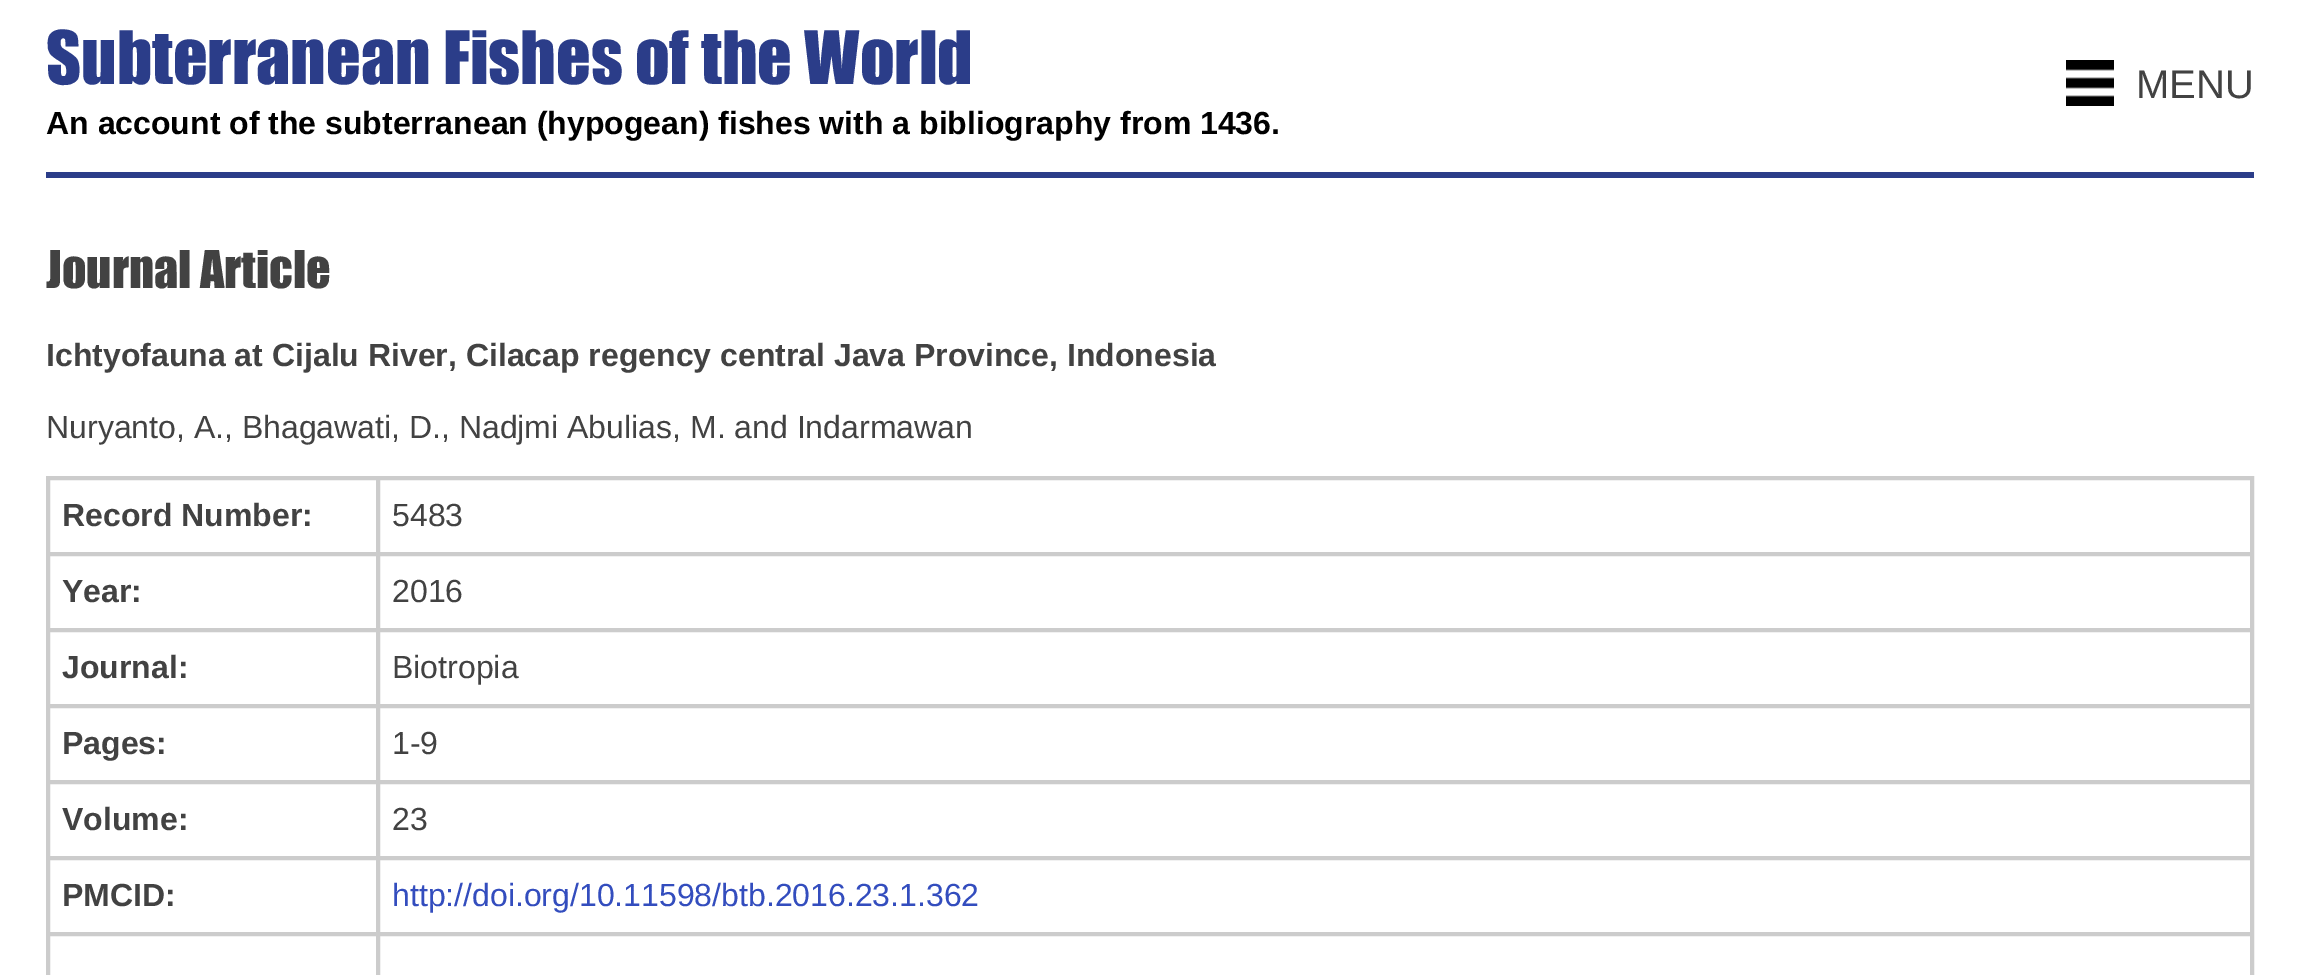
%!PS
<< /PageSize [2300 975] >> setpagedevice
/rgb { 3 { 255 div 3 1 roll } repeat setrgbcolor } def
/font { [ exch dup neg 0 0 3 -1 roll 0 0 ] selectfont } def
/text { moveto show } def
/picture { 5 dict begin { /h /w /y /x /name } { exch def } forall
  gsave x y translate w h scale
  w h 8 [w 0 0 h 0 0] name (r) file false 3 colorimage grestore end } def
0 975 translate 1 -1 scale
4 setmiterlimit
255 255 255 rgb
0 0 2300 975 rectfill
43 61 137 rgb
46 172 2208 6 rectfill
(img_01.rgb) 2066 60 48 46 picture
204 204 204 rgb
2 setlinewidth
47 477 2206 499 rectstroke
49 479 328 74 rectstroke
379 479 1872 74 rectstroke
49 555 328 74 rectstroke
379 555 1872 74 rectstroke
49 631 328 74 rectstroke
379 631 1872 74 rectstroke
49 707 328 74 rectstroke
379 707 1872 74 rectstroke
49 783 328 74 rectstroke
379 783 1872 74 rectstroke
49 859 328 74 rectstroke
379 859 1872 74 rectstroke
49 935 328 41 rectstroke
379 935 1872 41 rectstroke
/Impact-Regular 68 font
43 61 137 rgb
(Subterranean Fishes of the World) 46 84 text
/LiberationSans-Regular 40 font
66 66 66 rgb
(MENU) 2136 98 text
/LiberationSans-Bold 32 font
0 0 0 rgb
(An account of the subterranean \(hypogean\) fishes with a bibliography from 1436.) 46 134 text
/Impact-Regular 48 font
66 66 66 rgb
(Journal Article) 46 288 text
/LiberationSans-Bold 32 font
(Ichtyofauna at Cijalu River, Cilacap regency central Java Province, Indonesia) 46 366 text
/LiberationSans-Regular 32 font
(Nuryanto, A., Bhagawati, D., Nadjmi Abulias, M. and Indarmawan) 46 438 text
/LiberationSans-Bold 32 font
(Record Number:) 62 526 text
/LiberationSans-Regular 32 font
(5483) 392 526 text
/LiberationSans-Bold 32 font
(Year:) 62 602 text
/LiberationSans-Regular 32 font
(2016) 392 602 text
/LiberationSans-Bold 32 font
(Journal:) 62 678 text
/LiberationSans-Regular 32 font
(Biotropia) 392 678 text
/LiberationSans-Bold 32 font
(Pages:) 62 754 text
/LiberationSans-Regular 32 font
(1-9) 392 754 text
/LiberationSans-Bold 32 font
(Volume:) 62 830 text
/LiberationSans-Regular 32 font
(23) 392 830 text
/LiberationSans-Bold 32 font
(PMCID:) 62 906 text
/LiberationSans-Regular 32 font
51 77 190 rgb
(http://doi.org/10.11598/btb.2016.23.1.362) 392 906 text
showpage
